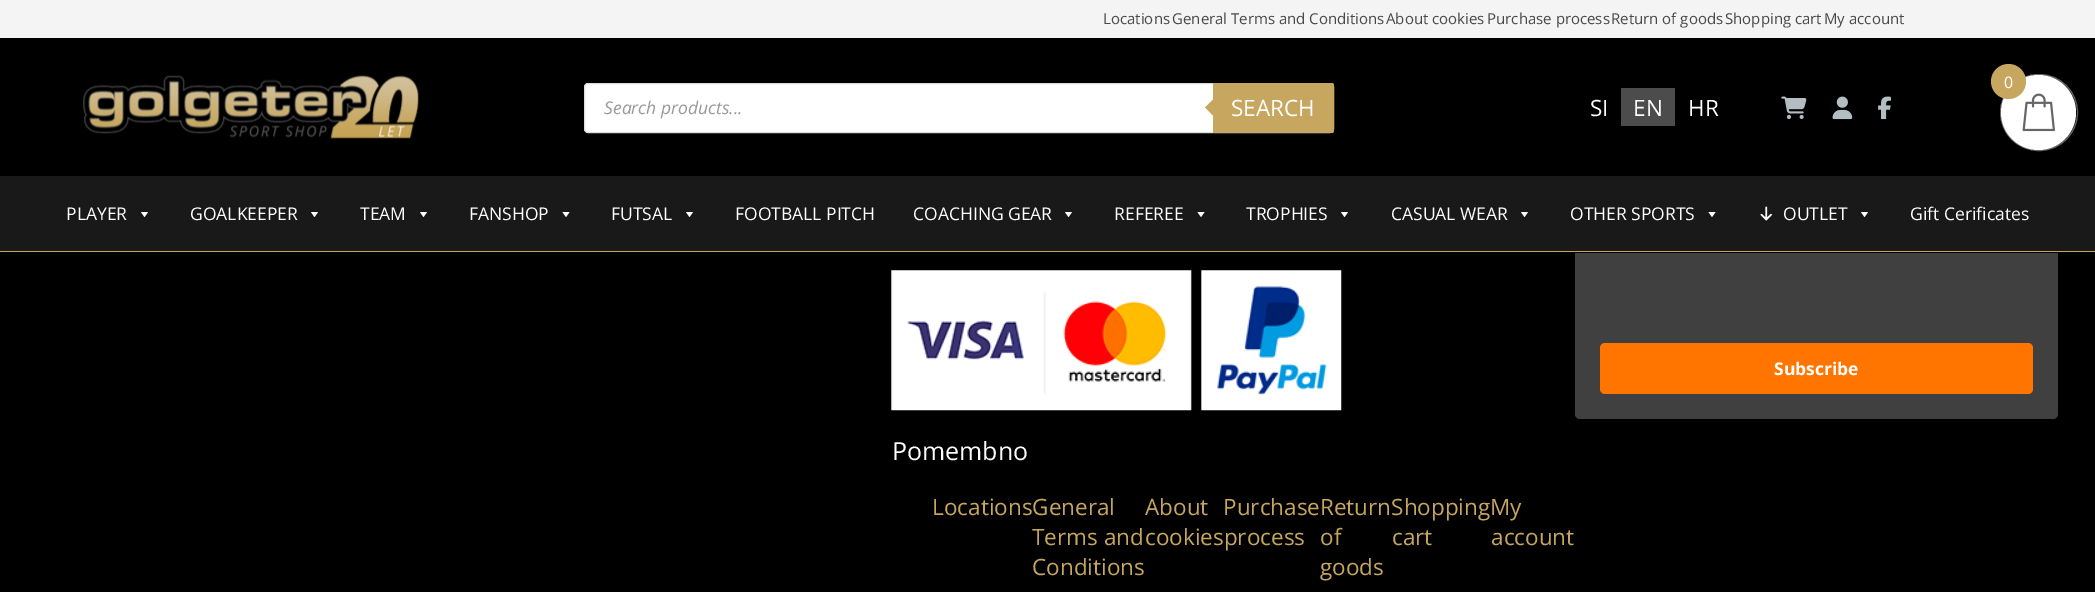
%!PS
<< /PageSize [2095 592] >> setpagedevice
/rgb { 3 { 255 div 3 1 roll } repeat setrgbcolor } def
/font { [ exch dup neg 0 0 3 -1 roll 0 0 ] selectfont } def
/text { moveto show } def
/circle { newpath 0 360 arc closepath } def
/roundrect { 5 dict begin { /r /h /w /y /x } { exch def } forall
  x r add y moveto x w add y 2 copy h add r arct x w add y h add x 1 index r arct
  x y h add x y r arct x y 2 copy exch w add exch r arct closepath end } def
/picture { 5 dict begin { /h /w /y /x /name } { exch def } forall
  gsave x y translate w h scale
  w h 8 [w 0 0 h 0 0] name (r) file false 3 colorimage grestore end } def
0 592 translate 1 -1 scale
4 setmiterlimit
0 0 0 rgb
0 0 2095 592 rectfill
64 64 64 rgb
1575 -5 483 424 5 roundrect fill
0 0 0 rgb
1575 38 483 215 rectfill
199 167 96 rgb
0 251 2095 1 rectfill
244 244 244 rgb
0 0 2095 38 rectfill
(img_01.rgb) 83 75 336 64 picture
255 255 255 rgb
584.5 83.5 749 49 3.5 roundrect gsave fill grestore
221 221 221 rgb
stroke
199 167 96 rgb
1213 83 moveto 118.5 0 rlineto 1.5 0 2.5 1 2.5 2.5 rcurveto 0 45 rlineto 0 1.5 -1 2.5 -2.5 2.5 rcurveto -118.5 0 rlineto closepath fill
1215 97.5 moveto 0 20 rlineto -10 -10 rlineto closepath fill
76 76 76 rgb
1621 88 54 38 rectfill
(img_02.rgb) 1781 96 26 23 picture
(img_03.rgb) 1832 96 21 24 picture
(img_04.rgb) 1878 96 13 24 picture
25 25 25 rgb
0 176 2095 75 rectfill
255 255 255 rgb
148 212 moveto -3.5 5 rlineto -3.5 -5 rlineto closepath fill
318 212 moveto -3.5 5 rlineto -3.5 -5 rlineto closepath fill
427 212 moveto -3.5 5 rlineto -3.5 -5 rlineto closepath fill
569.5 212 moveto -3.5 5 rlineto -3.5 -5 rlineto closepath fill
693 212 moveto -3.5 5 rlineto -3.5 -5 rlineto closepath fill
1072 212 moveto -3.5 5 rlineto -3.5 -5 rlineto closepath fill
1204.5 212 moveto -3.5 5 rlineto -3.5 -5 rlineto closepath fill
1348 212 moveto -3.5 5 rlineto -3.5 -5 rlineto closepath fill
1528 212 moveto -3.5 5 rlineto -3.5 -5 rlineto closepath fill
1715.5 212 moveto -3.5 5 rlineto -3.5 -5 rlineto closepath fill
(img_05.rgb) 1760 206 13 15 picture
1868 212 moveto -3.5 5 rlineto -3.5 -5 rlineto closepath fill
102 102 102 rgb
2000.5 74.5 77 76 38 roundrect stroke
255 255 255 rgb
2038.5 112.5 37.5 circle fill
(img_06.rgb) 2022 93 33 39 picture
199 167 96 rgb
2008.5 81.5 17.5 circle fill
255 117 0 rgb
1600 343 433 51 5 roundrect fill
(img_07.rgb) 891 270 451 141 picture
/OpenSans-Regular 15 font
72 72 72 rgb
(Locations) 1103 24 text
(General Terms and Conditions) 1172 24 text
(About cookies) 1386 24 text
(Purchase process) 1487 24 text
(Return of goods) 1611 24 text
(Shopping cart) 1725 24 text
(My account) 1824 24 text
/OpenSans-Italic 17.5 font
153 153 153 rgb
(Search products...) 604 114 text
/OpenSans-Regular 22.5 font
255 255 255 rgb
(SEARCH) 1231 116 text
(SI) 1590 116 text
(EN) 1633 116 text
(HR) 1688 116 text
/OpenSans-Regular 17.5 font
(PLAYER) 66 220 text
(GOALKEEPER) 190 220 text
(TEAM) 360 220 text
(FANSHOP) 469 220 text
(FUTSAL) 611 220 text
(FOOTBALL PITCH) 735 220 text
(COACHING GEAR) 913 220 text
(REFEREE) 1114 220 text
(TROPHIES) 1246 220 text
(CASUAL WEAR) 1391 220 text
(OTHER SPORTS) 1570 220 text
(OUTLET) 1783 220 text
(Gift Cerificates) 1910 220 text
/OpenSans-Regular 16 font
(0) 2004 88 text
/OpenSans-Bold 17.5 font
(Subscribe) 1774 375 text
/OpenSans-Regular 25 font
(Pomembno) 892 460 text
/OpenSans-Regular 22.5 font
199 167 96 rgb
(LocationsGeneral) 932 515 text
(About) 1145 515 text
(cookiesprocess) 1145 545 text
(PurchaseReturnShoppingMy) 1223 515 text
(Terms and) 1032 545 text
(Conditions) 1032 575 text
(of) 1320 545 text
(goods) 1320 575 text
(cart) 1392 545 text
(account) 1491 545 text
showpage
